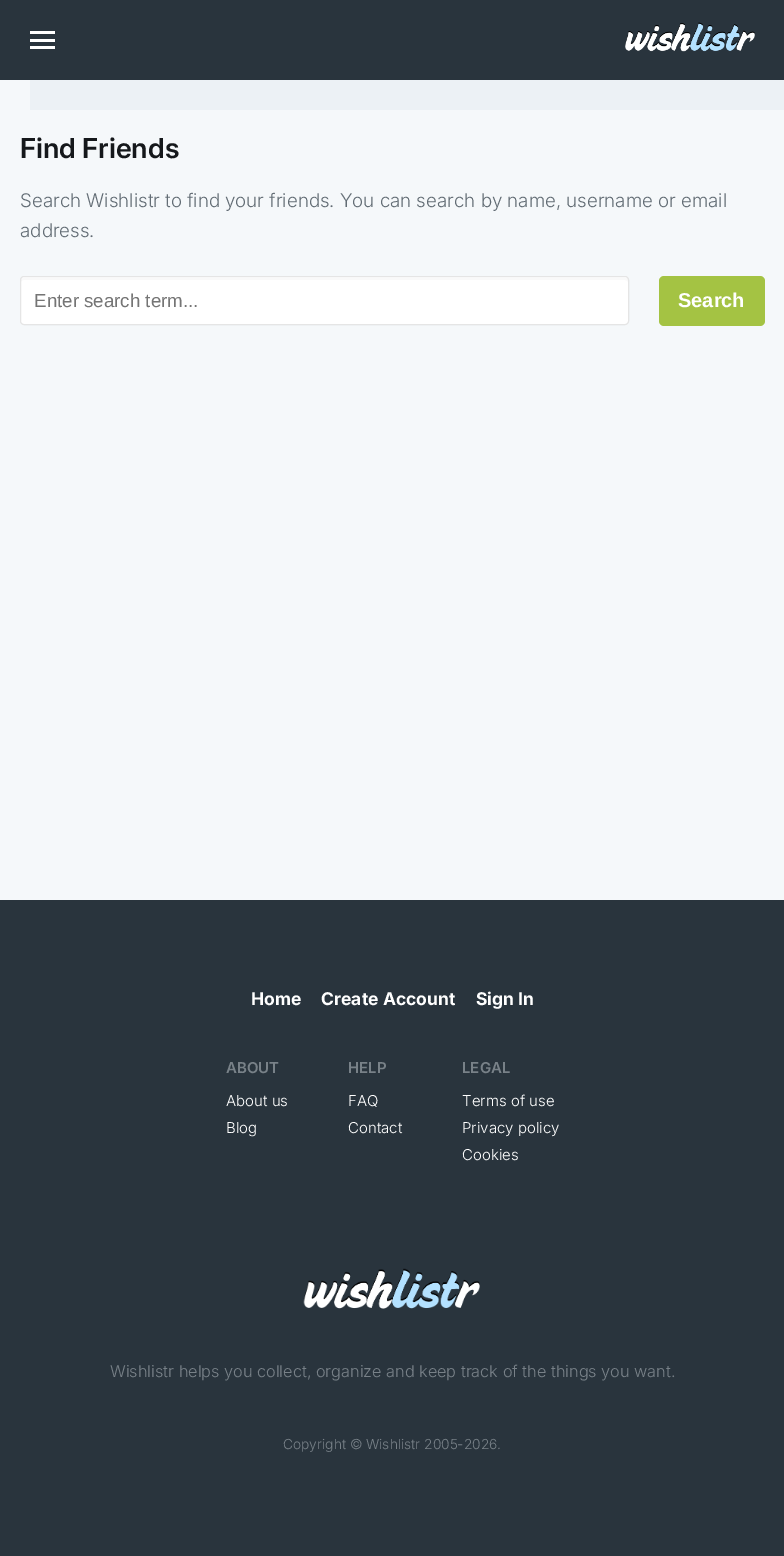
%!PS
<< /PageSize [784 1556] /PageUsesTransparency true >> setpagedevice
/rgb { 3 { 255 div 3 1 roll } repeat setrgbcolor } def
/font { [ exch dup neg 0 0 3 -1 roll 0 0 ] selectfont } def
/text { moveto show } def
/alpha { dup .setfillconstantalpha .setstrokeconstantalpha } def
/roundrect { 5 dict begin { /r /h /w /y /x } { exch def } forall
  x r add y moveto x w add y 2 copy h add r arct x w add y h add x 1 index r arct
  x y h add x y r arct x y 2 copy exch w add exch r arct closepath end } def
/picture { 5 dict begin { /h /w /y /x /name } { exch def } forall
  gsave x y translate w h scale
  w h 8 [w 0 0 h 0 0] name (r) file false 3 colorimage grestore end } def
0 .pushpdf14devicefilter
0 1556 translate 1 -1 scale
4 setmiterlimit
245 248 250 rgb
0 0 784 1556 rectfill
41 52 61 rgb
0 0 784 80 rectfill
255 255 255 rgb
30 31 25 3 rectfill
30 46 25 3 rectfill
30 39 25 3 rectfill
(img_01.rgb) 625 22 130 30 picture
236 241 245 rgb
30 80 754 30 rectfill
255 255 255 rgb
20 276 609 49 4 roundrect fill
249 249 249 rgb
24 280 moveto 601 0 rlineto 1 0 3 1 3 2 rcurveto 0 -2 rlineto 0 -1 -1 -2 -2 -2 rcurveto -602 0 rlineto -2 0 -3 1 -3 2 rcurveto 0 2 rlineto 0 -1 1 -2 3 -2 rcurveto closepath fill
0.1 alpha
0 0 0 rgb
20.5 276.5 608 48 3.5 roundrect stroke
1 alpha
164 195 67 rgb
659 276 106 50 5 roundrect fill
41 52 61 rgb
0 900 784 656 rectfill
(img_02.rgb) 303 1268 177 41 picture
/Inter-SemiBold 27.5 font
21 24 27 rgb
(Find Friends) 20 158 text
/Inter-Light 18.75 font
99 109 117 rgb
(Search Wishlistr to find your friends. You can search by name, username or email) 20 207 text
(address.) 20 237 text
/LiberationSans-Regular 18.75 font
117 117 117 rgb
(Enter search term...) 34 307 text
/LiberationSans-Bold 20 font
255 255 255 rgb
(Search) 678 307 text
/Inter-Bold 17.5 font
(Home) 251 1005 text
(Create Account) 321 1005 text
(Sign In) 476 1005 text
/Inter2-SemiBold 15 font
120 129 136 rgb
(ABOUT) 226 1073 text
/Inter2-Light 15 font
255 255 255 rgb
(About us) 226 1106 text
(Blog) 226 1133 text
/Inter2-SemiBold 15 font
120 129 136 rgb
(HELP) 348 1073 text
/Inter2-Light 15 font
255 255 255 rgb
(FAQ) 348 1106 text
(Contact) 348 1133 text
/Inter2-SemiBold 15 font
120 129 136 rgb
(LEGAL) 462 1073 text
/Inter2-Light 15 font
255 255 255 rgb
(Terms of use) 462 1106 text
(Privacy policy) 462 1133 text
(Cookies) 462 1160 text
/Inter2-Light 16.25 font
120 129 136 rgb
(Wishlistr helps you collect, organize and keep track of the things you want.) 110 1377 text
/Inter2-Light 13.75 font
(Copyright © Wishlistr 2005-2026.) 283 1449 text
.poppdf14devicefilter showpage
